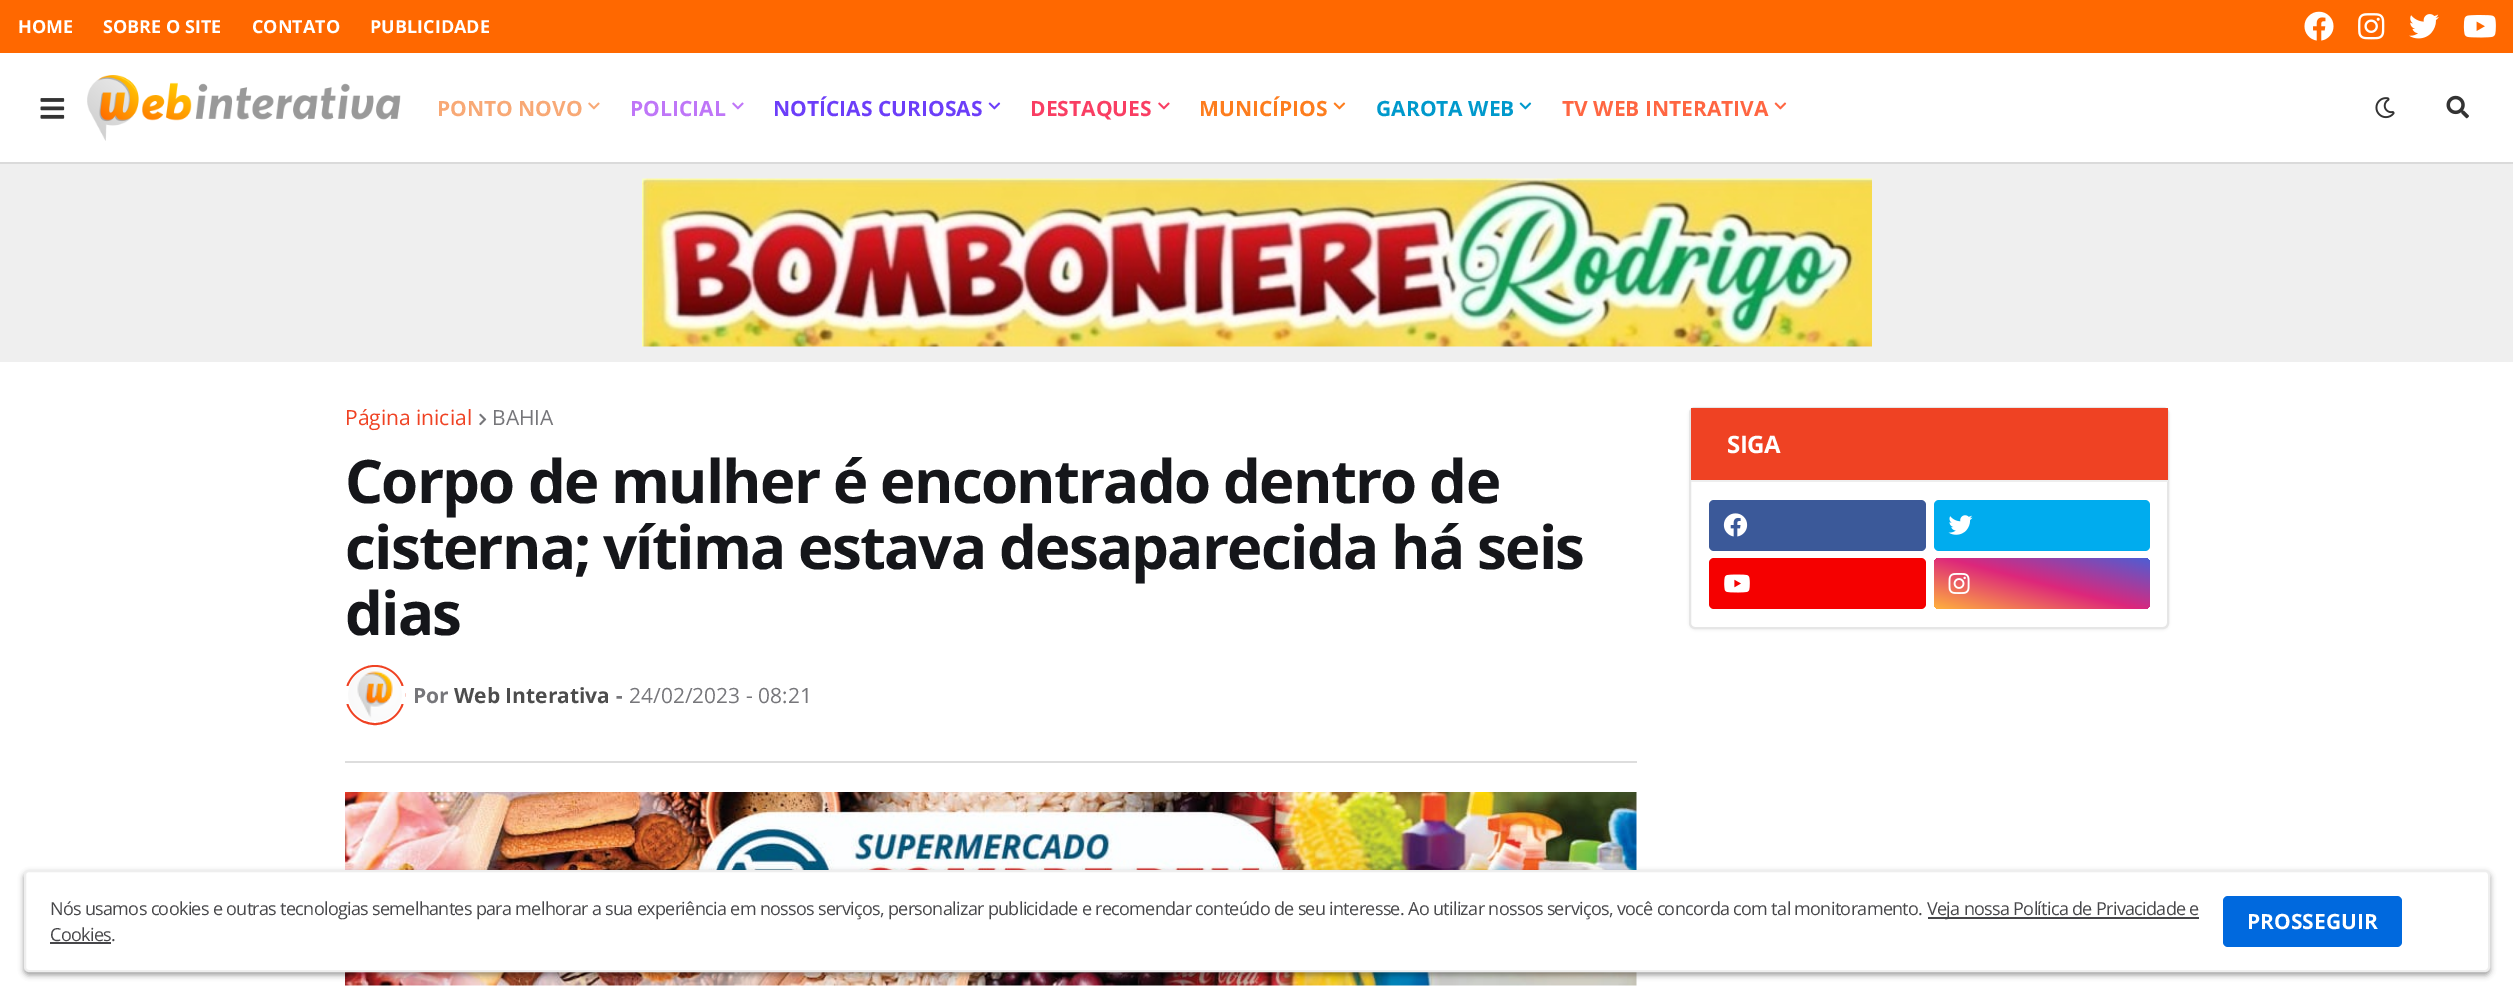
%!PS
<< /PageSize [2513 995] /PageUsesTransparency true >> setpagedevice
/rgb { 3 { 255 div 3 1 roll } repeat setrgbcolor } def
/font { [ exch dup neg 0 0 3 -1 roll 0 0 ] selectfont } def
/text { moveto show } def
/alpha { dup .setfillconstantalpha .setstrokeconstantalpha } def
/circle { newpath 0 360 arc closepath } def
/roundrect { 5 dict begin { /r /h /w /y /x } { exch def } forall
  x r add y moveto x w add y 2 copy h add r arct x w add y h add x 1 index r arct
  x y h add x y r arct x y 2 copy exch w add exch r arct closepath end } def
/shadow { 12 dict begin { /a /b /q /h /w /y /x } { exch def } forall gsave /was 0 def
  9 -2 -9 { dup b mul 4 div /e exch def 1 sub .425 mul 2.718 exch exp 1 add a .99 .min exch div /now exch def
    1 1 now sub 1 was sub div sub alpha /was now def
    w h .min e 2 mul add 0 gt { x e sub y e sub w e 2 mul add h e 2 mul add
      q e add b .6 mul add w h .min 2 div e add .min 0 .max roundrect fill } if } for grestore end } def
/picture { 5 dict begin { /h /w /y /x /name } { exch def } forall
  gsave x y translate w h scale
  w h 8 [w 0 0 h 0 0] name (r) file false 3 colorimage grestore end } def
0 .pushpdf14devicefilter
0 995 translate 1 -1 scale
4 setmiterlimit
255 255 255 rgb
0 0 2513 995 rectfill
255 104 0 rgb
0 0 2513 53 rectfill
(img_01.rgb) 2304 11 30 30 picture
(img_02.rgb) 2358 13 27 27 picture
(img_03.rgb) 2409 14 30 25 picture
(img_04.rgb) 2463 15 33 23 picture
218 218 218 rgb
0 162 2513 2 rectfill
(img_05.rgb) 40 98 25 21 picture
(img_06.rgb) 87 75 314 66 picture
(img_07.rgb) 588 102 12 8 picture
(img_08.rgb) 732 102 12 8 picture
(img_09.rgb) 988 102 13 8 picture
(img_10.rgb) 1158 102 12 8 picture
(img_11.rgb) 1333 102 13 8 picture
(img_12.rgb) 1519 102 13 8 picture
(img_13.rgb) 1774 102 13 8 picture
(img_14.rgb) 2375 97 20 22 picture
(img_15.rgb) 2446 95 23 24 picture
239 239 239 rgb
0 164 2513 198 rectfill
(img_16.rgb) 642 178 1230 169 picture
221 221 221 rgb
345 761 1292 2 rectfill
(img_17.rgb) 479 413 8 13 picture
239 66 35 rgb
2 setlinewidth
375 695 29 circle stroke
255 255 255 rgb
345 686 60 18 rectfill
(img_18.rgb) 348 667 54 54 picture
(img_19.rgb) 345 792 1292 194 picture
0 0 0 rgb
1689 408 480 222 6 1.5 0.05 shadow
255 255 255 rgb
1690 408 478 220 5 roundrect gsave fill grestore
230 230 230 rgb
stroke
239 66 35 rgb
1691 408 477 72 rectfill
238 238 238 rgb
1691 480 477 2 rectfill
59 89 153 rgb
1709 500 217 51 5 roundrect fill
(img_20.rgb) 1723 513 25 24 picture
0 172 238 rgb
1934 500 216 51 5 roundrect fill
(img_21.rgb) 1948 515 25 20 picture
245 0 0 rgb
1709 558 217 51 5 roundrect fill
(img_22.rgb) 1724 574 26 19 picture
gsave 1934 558 216 51 5 roundrect clip newpath
<< /ShadingType 2 /ColorSpace /DeviceRGB /Coords [2028 634 2055 533] /Extend [true true] /Function << /FunctionType 3 /Domain [0 1] /Functions [<< /FunctionType 2 /Domain [0 1] /C0 [1 0.694 0.239] /C1 [0.867 0.153 0.482] /N 1 >> << /FunctionType 2 /Domain [0 1] /C0 [0.867 0.153 0.482] /C1 [0.302 0.369 0.831] /N 1 >>] /Bounds [0.5] /Encode [0 1 0 1] >> >> shfill grestore
(img_23.rgb) 1948 573 22 21 picture
0 0 0 rgb
24 873 2466 102 5 3 0.4 shadow
255 255 255 rgb
25 871 2464 100 4 roundrect gsave fill grestore
238 238 238 rgb
stroke
71 71 74 rgb
1928 917 271 2 rectfill
50 942 61 2 rectfill
0 105 222 rgb
2223 896 179 51 5 roundrect fill
/OpenSans-Bold 18 font
255 255 255 rgb
(HOME) 18 33 text
(SOBRE O SITE) 103 33 text
(CONTATO) 252 33 text
(PUBLICIDADE) 370 33 text
/OpenSans-Bold 21 font
248 169 118 rgb
(PONTO NOVO) 437 116 text
191 118 248 rgb
(POLICIAL) 630 116 text
108 62 249 rgb
(NOTÍCIAS CURIOSAS) 773 116 text
249 62 99 rgb
(DESTAQUES) 1030 116 text
253 125 30 rgb
(MUNICÍPIOS) 1199 116 text
0 153 204 rgb
(GAROTA WEB) 1376 116 text
255 102 66 rgb
(TV WEB INTERATIVA) 1562 116 text
/OpenSans-Regular 21 font
239 66 35 rgb
(Página inicial) 345 425 text
118 118 122 rgb
(BAHIA) 492 425 text
/OpenSans-Bold 60 font
21 22 26 rgb
345 503 moveto -1.8 0 (Corpo de mulher é encontrado dentro de) ashow
345 569 moveto -1.8 0 (cisterna; vítima estava desaparecida há seis) ashow
345 635 moveto -1.8 0 (dias) ashow
/OpenSans-Bold 21 font
118 118 122 rgb
(Por) 413 703 text
77 77 77 rgb
(Web Interativa) 454 703 text
118 118 122 rgb
(-) 616 703 text
/OpenSans-Regular 21 font
(24/02/2023 - 08:21) 629 703 text
/OpenSans-Bold 24 font
255 255 255 rgb
1727 453 moveto -0.5 0 (SIGA) ashow
/OpenSans-Regular 18 font
71 71 74 rgb
50 915 moveto -0.68 0 (Nós usamos cookies e outras tecnologias semelhantes para melhorar a sua experiência em nossos serviços, personalizar publicidade e recomendar conteúdo de seu interesse. Ao utilizar nossos serviços, você concorda com tal monitoramento.) ashow
1927 915 moveto -0.68 0 (Veja nossa Política de Privacidade e) ashow
50 941 moveto -0.68 0 (Cookies.) ashow
/OpenSans-Bold 21 font
255 255 255 rgb
(PROSSEGUIR) 2247 929 text
.poppdf14devicefilter showpage
